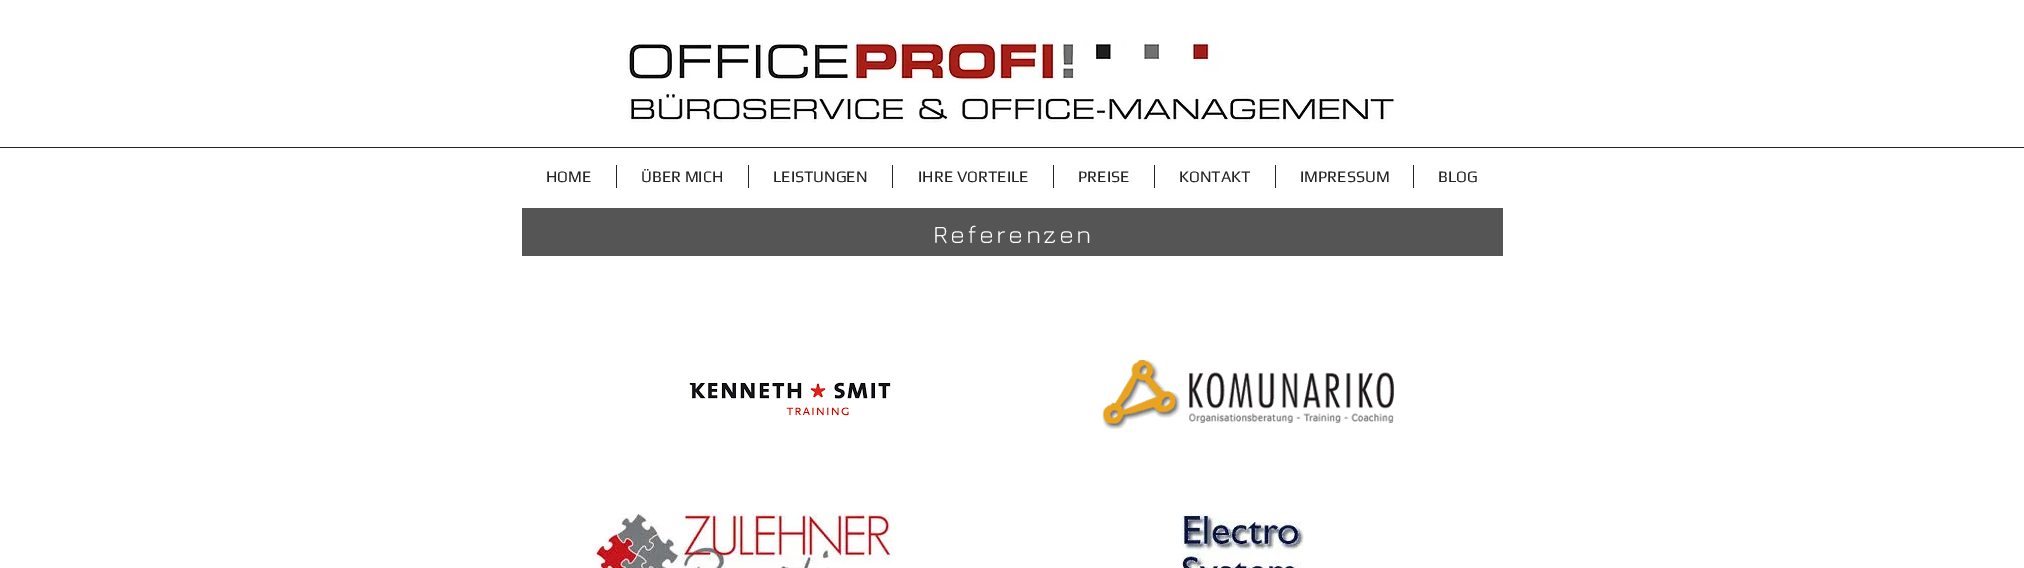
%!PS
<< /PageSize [2024 568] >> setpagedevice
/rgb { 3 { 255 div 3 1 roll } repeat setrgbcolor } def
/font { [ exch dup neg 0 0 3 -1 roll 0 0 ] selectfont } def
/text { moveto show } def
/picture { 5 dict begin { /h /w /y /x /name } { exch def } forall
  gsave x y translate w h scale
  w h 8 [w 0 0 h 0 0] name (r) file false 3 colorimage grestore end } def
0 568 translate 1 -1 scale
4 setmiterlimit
255 255 255 rgb
0 0 2024 568 rectfill
(img_01.rgb) 627 39 768 84 picture
36 36 36 rgb
0 147 2024 1 rectfill
616 165 1 23 rectfill
748 165 1 23 rectfill
892 165 1 23 rectfill
1053 165 1 23 rectfill
1154 165 1 23 rectfill
1275 165 1 23 rectfill
1413 165 1 23 rectfill
85 85 85 rgb
522 208 981 48 rectfill
(img_02.rgb) 689 382 202 34 picture
(img_03.rgb) 1102 359 292 70 picture
(img_04.rgb) 593 512 300 56 picture
(img_05.rgb) 1181 514 123 54 picture
/Play-Regular 16 font
36 36 36 rgb
(HOME) 546 182 text
(ÜBER MICH) 641 182 text
(LEISTUNGEN) 773 182 text
(IHRE VORTEILE) 918 182 text
(PREISE) 1078 182 text
(KONTAKT) 1179 182 text
(IMPRESSUM) 1300 182 text
(BLOG) 1438 182 text
/Jura-Regular 25 font
255 255 255 rgb
933 243 moveto 2.5 0 (Referenzen) ashow
showpage
